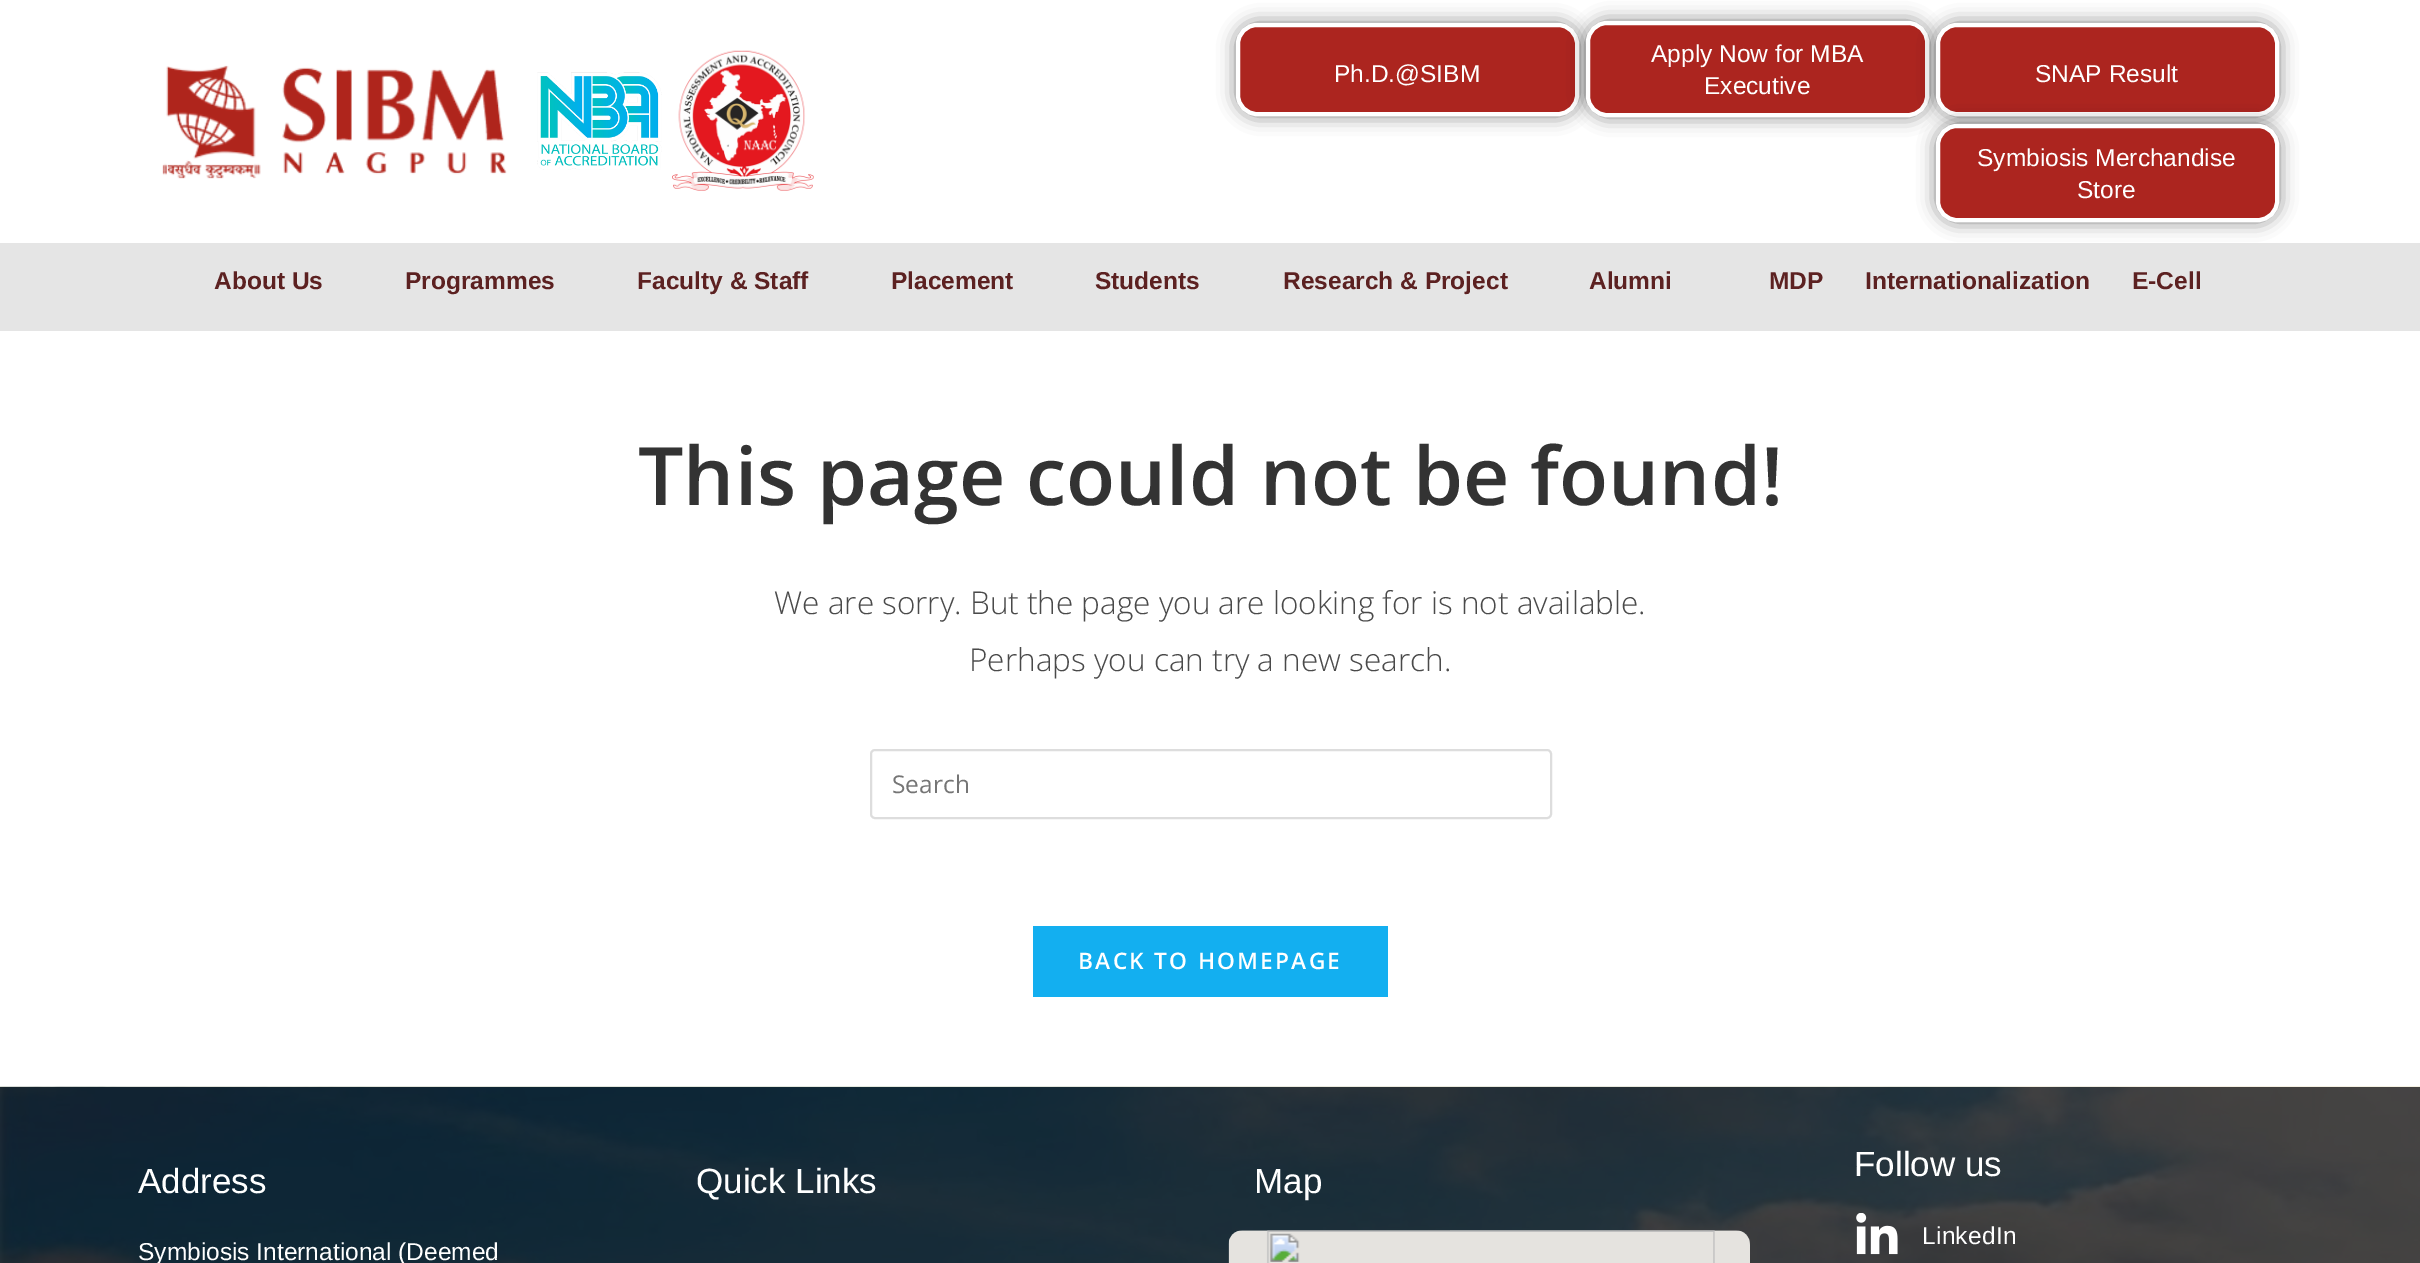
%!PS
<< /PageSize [2420 1263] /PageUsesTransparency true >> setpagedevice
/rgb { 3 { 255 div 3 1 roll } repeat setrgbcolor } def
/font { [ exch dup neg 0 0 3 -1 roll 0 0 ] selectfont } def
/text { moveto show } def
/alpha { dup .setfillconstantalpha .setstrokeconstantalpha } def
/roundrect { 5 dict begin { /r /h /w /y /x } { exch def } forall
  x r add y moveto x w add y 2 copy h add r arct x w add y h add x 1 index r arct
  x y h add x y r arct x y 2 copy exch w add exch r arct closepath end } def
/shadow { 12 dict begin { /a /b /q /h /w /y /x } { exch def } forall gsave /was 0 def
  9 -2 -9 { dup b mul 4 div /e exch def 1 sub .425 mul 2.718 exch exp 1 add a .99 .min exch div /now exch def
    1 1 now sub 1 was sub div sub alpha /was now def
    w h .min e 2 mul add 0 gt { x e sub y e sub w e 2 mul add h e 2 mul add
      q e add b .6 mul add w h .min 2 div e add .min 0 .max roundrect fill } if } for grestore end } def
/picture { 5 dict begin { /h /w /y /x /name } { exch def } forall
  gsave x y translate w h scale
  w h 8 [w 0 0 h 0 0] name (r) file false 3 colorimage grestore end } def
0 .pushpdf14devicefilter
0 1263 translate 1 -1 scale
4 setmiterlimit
255 255 255 rgb
0 0 2420 1263 rectfill
(img_01.rgb) 162 65 345 114 picture
(img_02.rgb) 537 72 125 98 picture
(img_03.rgb) 672 50 142 141 picture
0 0 0 rgb
1236 23 343 93 21 9 0.5 shadow
172 37 31 rgb
1238 25 339 89 19 roundrect gsave fill grestore
255 255 255 rgb
4 setlinewidth
stroke
0 0 0 rgb
1586 21 343 96 21 9 0.5 shadow
172 37 31 rgb
1588 23 339 92 19 roundrect gsave fill grestore
255 255 255 rgb
stroke
0 0 0 rgb
1936 23 343 93 21 9 0.5 shadow
172 37 31 rgb
1938 25 339 89 19 roundrect gsave fill grestore
255 255 255 rgb
stroke
0 0 0 rgb
1936 124 343 98 21 9 0.5 shadow
172 37 31 rgb
1938 126 339 94 19 roundrect gsave fill grestore
255 255 255 rgb
stroke
229 229 229 rgb
0 243 2420 88 rectfill
221 221 221 rgb
2 setlinewidth
871 750 680 68 4 roundrect stroke
19 175 240 rgb
1033 926 355 71 rectfill
(img_04.rgb) 0 1086 2420 177 picture
(img_05.rgb) 1228 1230 522 33 picture
(img_06.rgb) 1856 1213 42 42 picture
/LiberationSans-Regular 24.5 font
255 255 255 rgb
(Ph.D.@SIBM) 1334 82 text
(Apply Now for MBA) 1651 62 text
(Executive) 1704 94 text
(SNAP Result) 2035 82 text
(Symbiosis Merchandise) 1977 166 text
(Store) 2077 198 text
/LiberationSans-Bold 24.5 font
92 33 33 rgb
(About Us) 214 289 text
(Programmes) 405 289 text
(Faculty & Staff) 637 289 text
(Placement) 891 289 text
(Students) 1095 289 text
(Research & Project) 1283 289 text
(Alumni) 1589 289 text
(MDP) 1769 289 text
(Internationalization) 1865 289 text
(E-Cell) 2132 289 text
/OpenSans-SemiBold 80.5 font
51 51 51 rgb
(This page could not be found!) 638 505 text
/OpenSans-Light 31.5 font
74 74 74 rgb
(We are sorry. But the page you are looking for is not available.) 774 614 text
(Perhaps you can try a new search.) 969 671 text
/OpenSans-Regular 24.5 font
117 117 117 rgb
(Search) 892 793 text
/OpenSans-SemiBold 22.75 font
255 255 255 rgb
1078 969 moveto 2.25 0 (BACK TO HOMEPAGE) ashow
/LiberationSans-Regular 35 font
(Address) 138 1193 text
/LiberationSans-Regular 24.5 font
(Symbiosis International \(Deemed) 138 1260 text
/LiberationSans-Regular 35 font
(Quick Links) 696 1193 text
(Map) 1254 1193 text
(Follow us) 1854 1176 text
/LiberationSans-Regular 24.5 font
1922 1244 moveto 0.25 0 (LinkedIn) ashow
.poppdf14devicefilter showpage
